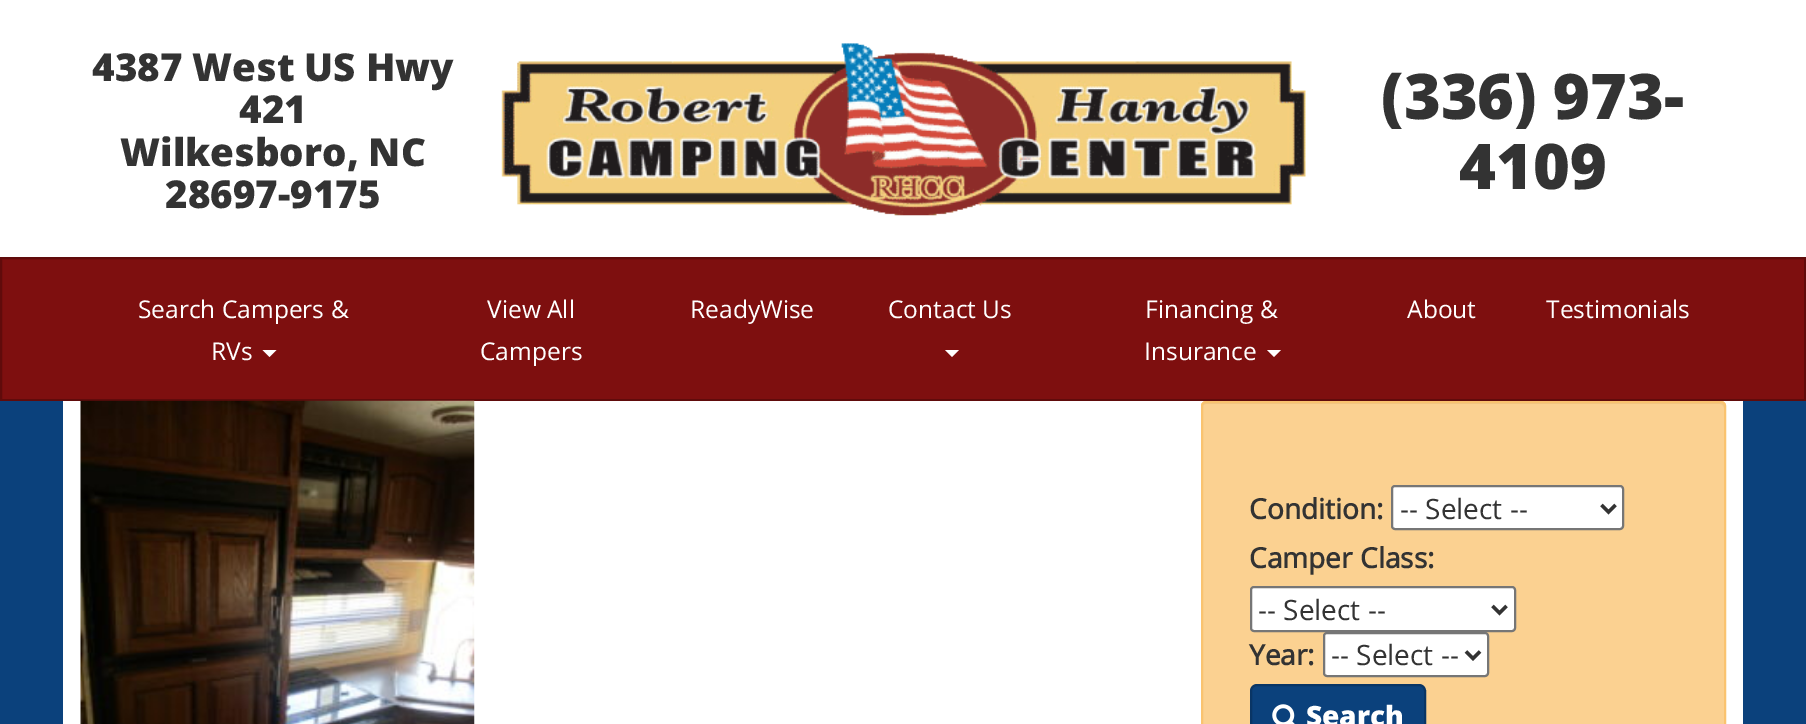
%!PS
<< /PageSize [1806 724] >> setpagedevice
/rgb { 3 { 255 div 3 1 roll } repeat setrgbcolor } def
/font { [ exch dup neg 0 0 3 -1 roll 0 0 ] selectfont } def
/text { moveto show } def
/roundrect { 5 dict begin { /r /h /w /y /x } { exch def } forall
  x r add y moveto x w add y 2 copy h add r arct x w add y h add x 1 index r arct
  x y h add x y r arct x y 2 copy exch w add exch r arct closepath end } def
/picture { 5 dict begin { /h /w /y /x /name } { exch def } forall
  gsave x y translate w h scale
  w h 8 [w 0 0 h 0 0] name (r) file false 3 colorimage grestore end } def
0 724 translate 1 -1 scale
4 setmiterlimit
255 255 255 rgb
0 0 1806 724 rectfill
(img_01.rgb) 501 43 805 173 picture
126 15 15 rgb
1 258 moveto 1804 0 rlineto 0 142 rlineto -1804 0 rlineto closepath gsave fill grestore
96 11 11 rgb
2 setlinewidth
stroke
255 255 255 rgb
262.5 350 moveto 14 0 rlineto -7 7 rlineto closepath fill
945 350 moveto 14 0 rlineto -7 7 rlineto closepath fill
1267 350 moveto 14 0 rlineto -7 7 rlineto closepath fill
11 65 124 rgb
0 401 1806 323 rectfill
255 255 255 rgb
63 401 1680 323 rectfill
(img_02.rgb) 80 400 395 324 picture
251 209 145 rgb
1201 401 525 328 5 roundrect fill
238 199 138 rgb
1206 404 moveto 514 0 rlineto 2 0 4 2 4 4 rcurveto 0 -1 rlineto 0 -2 -2 -4 -4 -4 rcurveto -514 0 rlineto -2 0 -4 2 -4 4 rcurveto 0 1 rlineto 0 -2 2 -4 4 -4 rcurveto closepath fill
250 195 111 rgb
1202 402 523 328 4 roundrect stroke
255 255 255 rgb
1392 486 231 43 3 roundrect gsave fill grestore
118 118 118 rgb
stroke
51 51 51 rgb
3.5 setlinewidth
1601.5 505 moveto 7 7 rlineto 7 -7 rlineto stroke
255 255 255 rgb
1251 587 264 44 3 roundrect gsave fill grestore
118 118 118 rgb
2 setlinewidth
stroke
51 51 51 rgb
3.5 setlinewidth
1492.5 606 moveto 7 7 rlineto 7 -7 rlineto stroke
255 255 255 rgb
1324 633 164 43 3 roundrect gsave fill grestore
118 118 118 rgb
2 setlinewidth
stroke
51 51 51 rgb
3.5 setlinewidth
1466 651.5 moveto 7 7 rlineto 7 -7 rlineto stroke
11 65 124 rgb
1251 685 174 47 6 roundrect gsave fill grestore
9 53 101 rgb
2 setlinewidth
stroke
(img_03.rgb) 1272 704 23 20 picture
/OpenSans-ExtraBold 38.5 font
51 51 51 rgb
(4387 West US Hwy) 92 81 text
(421) 239 123 text
(Wilkesboro, NC) 120 166 text
(28697-9175) 165 208 text
/OpenSans-ExtraBold 63 font
(\(336\) 973-) 1381 119 text
(4109) 1459 189 text
/OpenSans-Regular 24.5 font
255 255 255 rgb
(Search Campers &) 138 318 text
(RVs) 211 360 text
(View All) 487 318 text
(Campers) 480 360 text
(ReadyWise) 690 318 text
(Contact Us) 888 318 text
(Financing &) 1145 318 text
(Insurance) 1144 360 text
(About) 1407 318 text
(Testimonials) 1546 318 text
/OpenSans-Bold 28 font
51 51 51 rgb
(Condition:) 1249 519 text
/OpenSans-Regular 28 font
(-- Select --) 1400 519 text
/OpenSans-Bold 28 font
(Camper Class:) 1249 568 text
/OpenSans-Regular 28 font
(-- Select --) 1258 620 text
/OpenSans-Bold 28 font
(Year:) 1249 665 text
/OpenSans-Regular 28 font
(-- Select --) 1331 665 text
/OpenSans-ExtraBold 28 font
255 255 255 rgb
(Search) 1306 726 text
showpage
